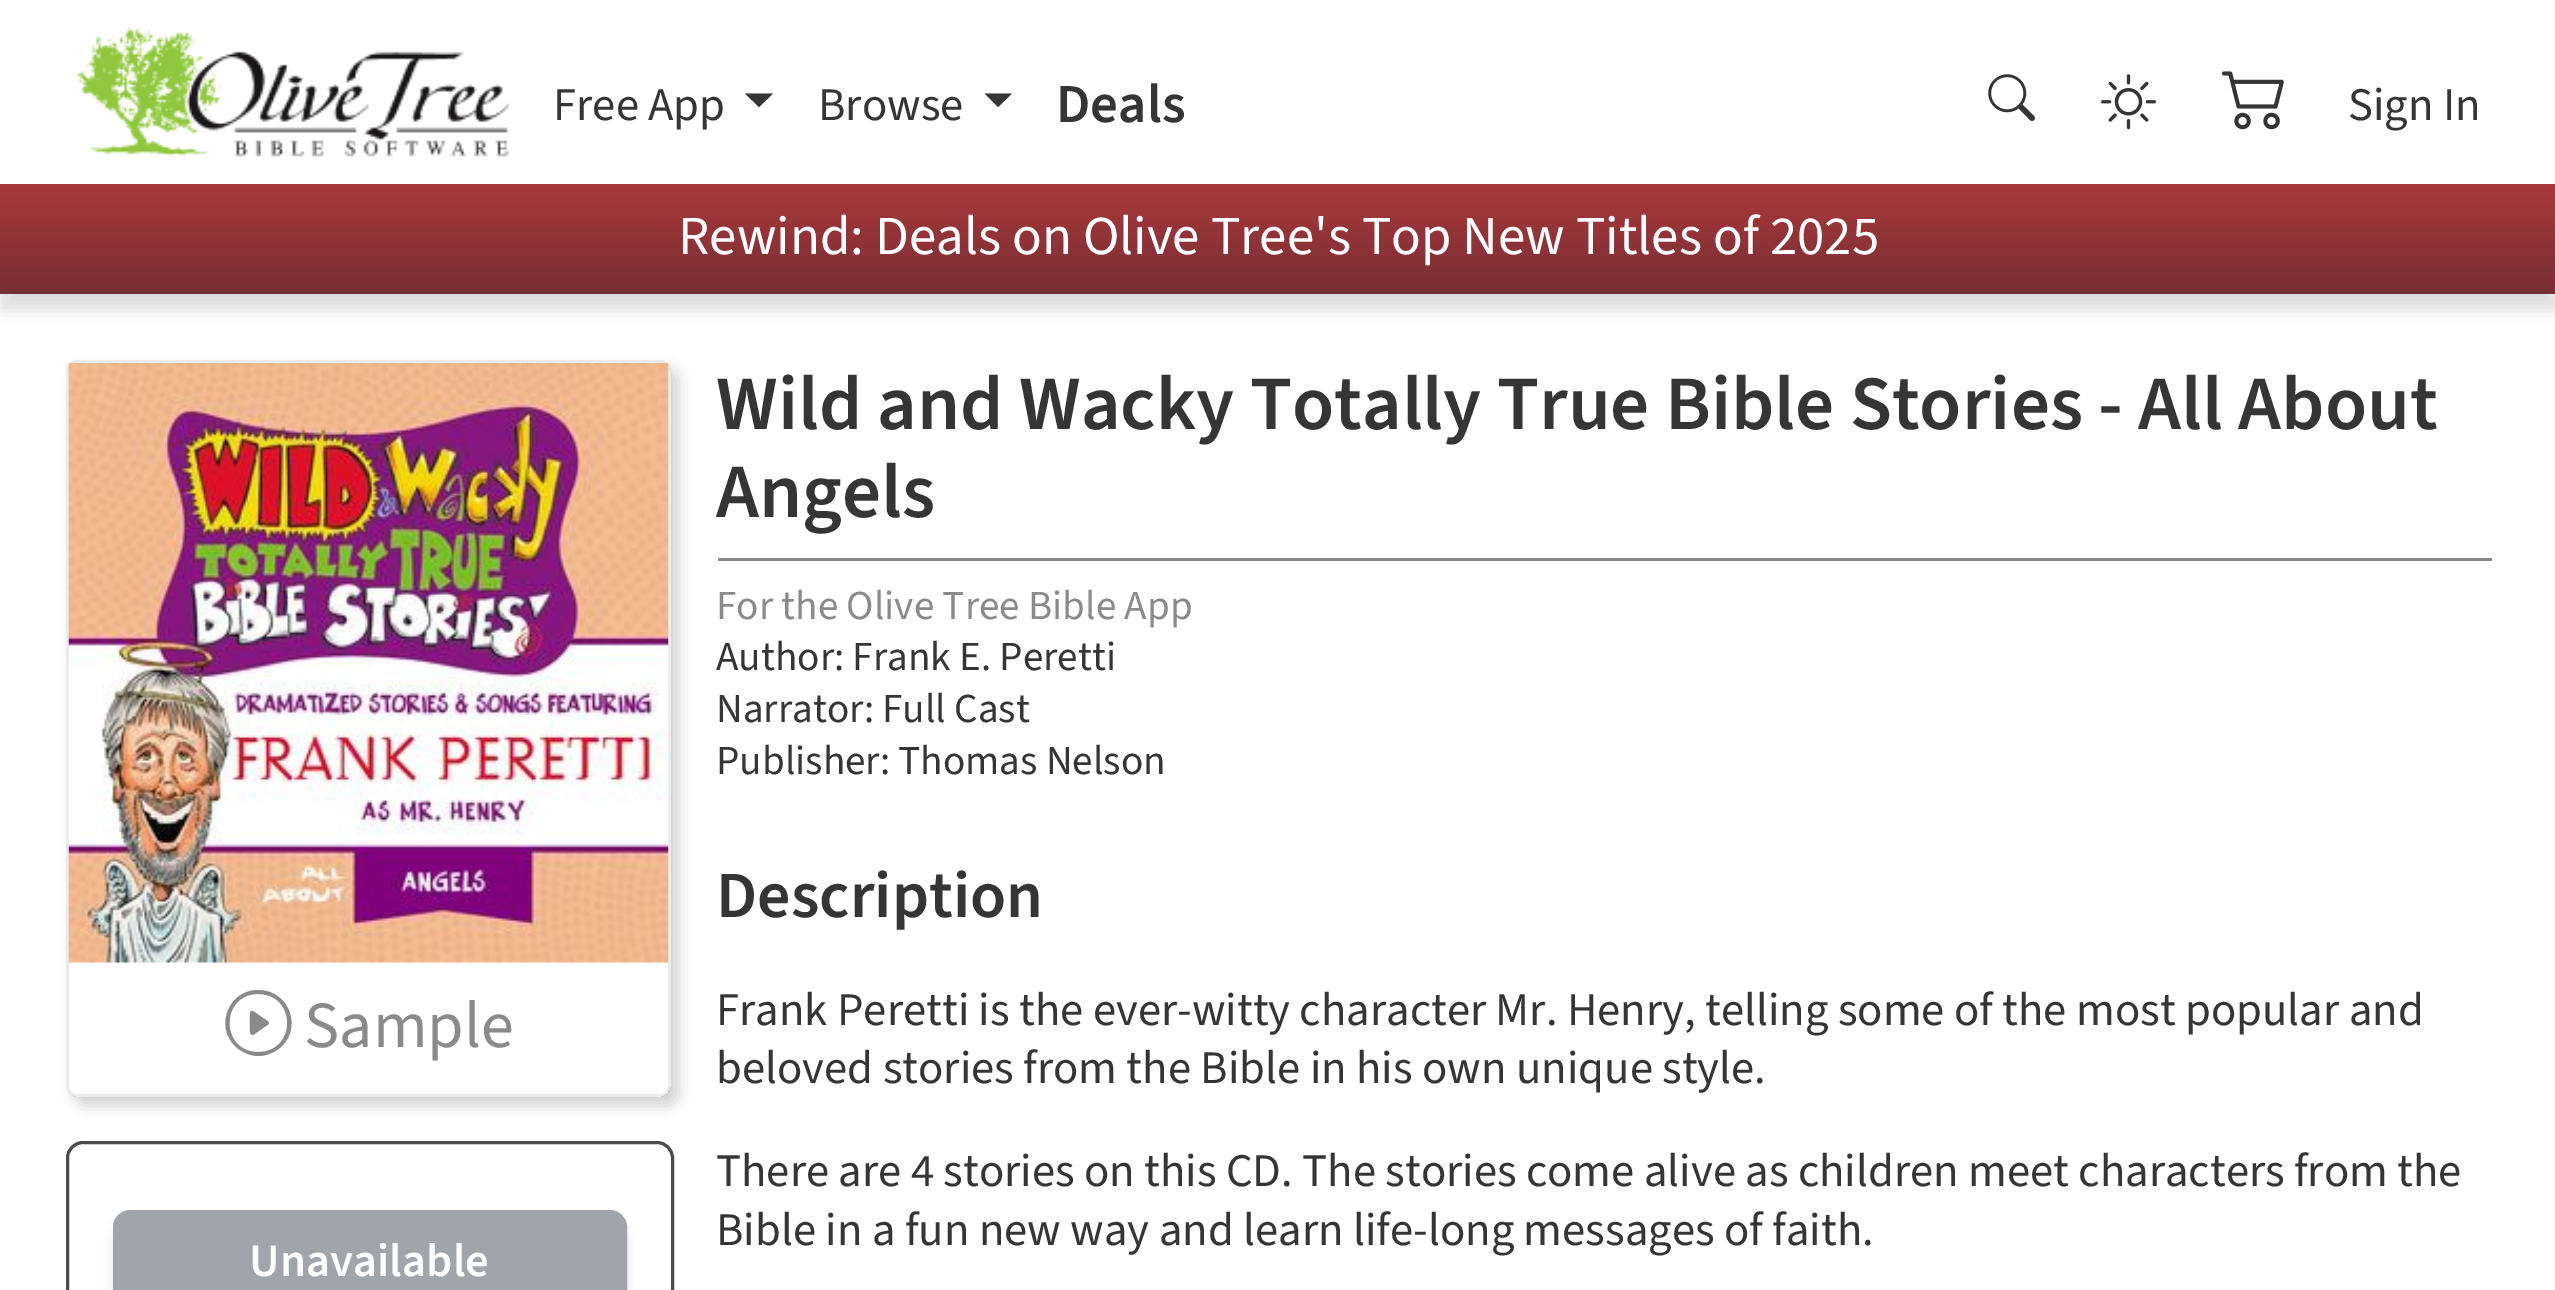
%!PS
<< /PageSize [2555 1290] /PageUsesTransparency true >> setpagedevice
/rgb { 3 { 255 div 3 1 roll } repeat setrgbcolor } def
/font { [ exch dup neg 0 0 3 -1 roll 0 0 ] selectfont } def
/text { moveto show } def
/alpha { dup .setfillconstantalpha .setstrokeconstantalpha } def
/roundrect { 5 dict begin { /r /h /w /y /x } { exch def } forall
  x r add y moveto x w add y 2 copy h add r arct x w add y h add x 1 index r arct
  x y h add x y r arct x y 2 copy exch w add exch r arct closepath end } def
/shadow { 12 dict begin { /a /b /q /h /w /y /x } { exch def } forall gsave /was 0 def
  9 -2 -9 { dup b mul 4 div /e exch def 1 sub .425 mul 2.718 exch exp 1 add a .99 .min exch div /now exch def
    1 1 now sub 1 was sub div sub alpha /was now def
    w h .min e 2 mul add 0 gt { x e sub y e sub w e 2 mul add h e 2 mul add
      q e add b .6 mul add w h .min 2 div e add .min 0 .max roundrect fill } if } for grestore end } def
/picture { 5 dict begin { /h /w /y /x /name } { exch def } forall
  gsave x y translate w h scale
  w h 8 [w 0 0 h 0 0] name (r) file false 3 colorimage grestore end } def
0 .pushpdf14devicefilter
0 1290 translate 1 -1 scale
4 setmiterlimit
255 255 255 rgb
0 0 2555 1290 rectfill
(img_01.rgb) 77 26 432 131 picture
53 53 53 rgb
745 93.5 moveto 28 0 rlineto -14 13.5 rlineto closepath fill
984.5 93.5 moveto 27.5 0 rlineto -14 13.5 rlineto closepath fill
(img_02.rgb) 1988 74 47 47 picture
(img_03.rgb) 2101 74 55 56 picture
(img_04.rgb) 2222 71 62 59 picture
0 0 0 rgb
0 201 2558 110 0 8 0.13 shadow
gsave 0 184 moveto 2555 0 rlineto 0 110 rlineto -2555 0 rlineto closepath clip newpath
<< /ShadingType 2 /ColorSpace /DeviceRGB /Coords [1279 184 1279 294] /Extend [true true] /Function << /FunctionType 2 /Domain [0 1] /C0 [0.667 0.224 0.231] /C1 [0.467 0.18 0.208] /N 1 >> >> shfill grestore
gsave
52 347 moveto 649 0 rlineto 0 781 rlineto -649 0 rlineto closepath 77 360 moveto 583 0 rlineto 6 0 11 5 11 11 rcurveto 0 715 rlineto 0 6 -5 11 -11 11 rcurveto -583 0 rlineto -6 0 -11 -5 -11 -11 rcurveto 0 -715 rlineto 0 -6 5 -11 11 -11 rcurveto closepath eoclip newpath
211 211 211 rgb
74 369 605 737 11 7 1 shadow
grestore
0.08 alpha
3 setlinewidth
67.5 361.5 602 734 9.5 roundrect stroke
1 alpha
(img_05.rgb) 68 363 601 600 picture
138 138 138 rgb
258 1052 moveto -38 0 -38 -58 0 -58 rcurveto 39 0 39 58 0 58 rcurveto closepath 258 1056 moveto 7 0 13 -2 19 -6 rcurveto 27 -18 14 -60 -19 -60 rcurveto -32 0 -45 42 -18 60 rcurveto 6 4 12 6 18 6 rcurveto closepath 251 1011 moveto 2 0 rlineto 10 7 rlineto 8 5 8 5 0 10 rcurveto -10 7 rlineto -4 1 -3 -7 -3 -9 rcurveto 0 -2 -1 -14 1 -15 rcurveto closepath fill
75 75 75 rgb
67.5 1142.5 605 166 15.5 roundrect stroke
89 89 89 rgb
113 1221 514 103 17 5.5 0.13 shadow
159 165 171 rgb
114.5 1211.5 511 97 15.5 roundrect gsave fill grestore
stroke
138 138 138 rgb
718 558 1774 3 rectfill
/SourceSans3-Regular 46.75 font
53 53 53 rgb
(Free App) 553 120 text
(Browse) 818 120 text
/SourceSans3-SemiBold 55 font
(Deals) 1056 122 text
/SourceSans3-Regular 46.75 font
(Sign In) 2348 120 text
/SourceSans3-Regular 55 font
255 255 255 rgb
(Rewind: Deals on Olive Tree's Top New Titles of 2025) 678 254 text
/SourceSans3-Regular 66 font
138 138 138 rgb
(Sample) 304 1047 text
/SourceSans3-SemiBold 46.75 font
255 255 255 rgb
(Unavailable) 249 1276 text
/SourceSans3-SemiBold 77 font
53 53 53 rgb
(Wild and Wacky Totally True Bible Stories - All About) 716 429 text
(Angels) 716 517 text
/SourceSans3-Regular 41.25 font
138 138 138 rgb
(For the Olive Tree Bible App) 716 619 text
53 53 53 rgb
(Author: Frank E. Peretti) 716 670 text
(Narrator: Full Cast) 716 722 text
(Publisher: Thomas Nelson) 716 774 text
/SourceSans3-SemiBold 66 font
(Description) 716 917 text
/SourceSans3-Regular 46.75 font
(Frank Peretti is the ever-witty character Mr. Henry, telling some of the most popular and) 716 1025 text
(beloved stories from the Bible in his own unique style.) 716 1083 text
(There are 4 stories on this CD. The stories come alive as children meet characters from the) 716 1186 text
(Bible in a fun new way and learn life-long messages of faith.) 716 1245 text
.poppdf14devicefilter showpage
